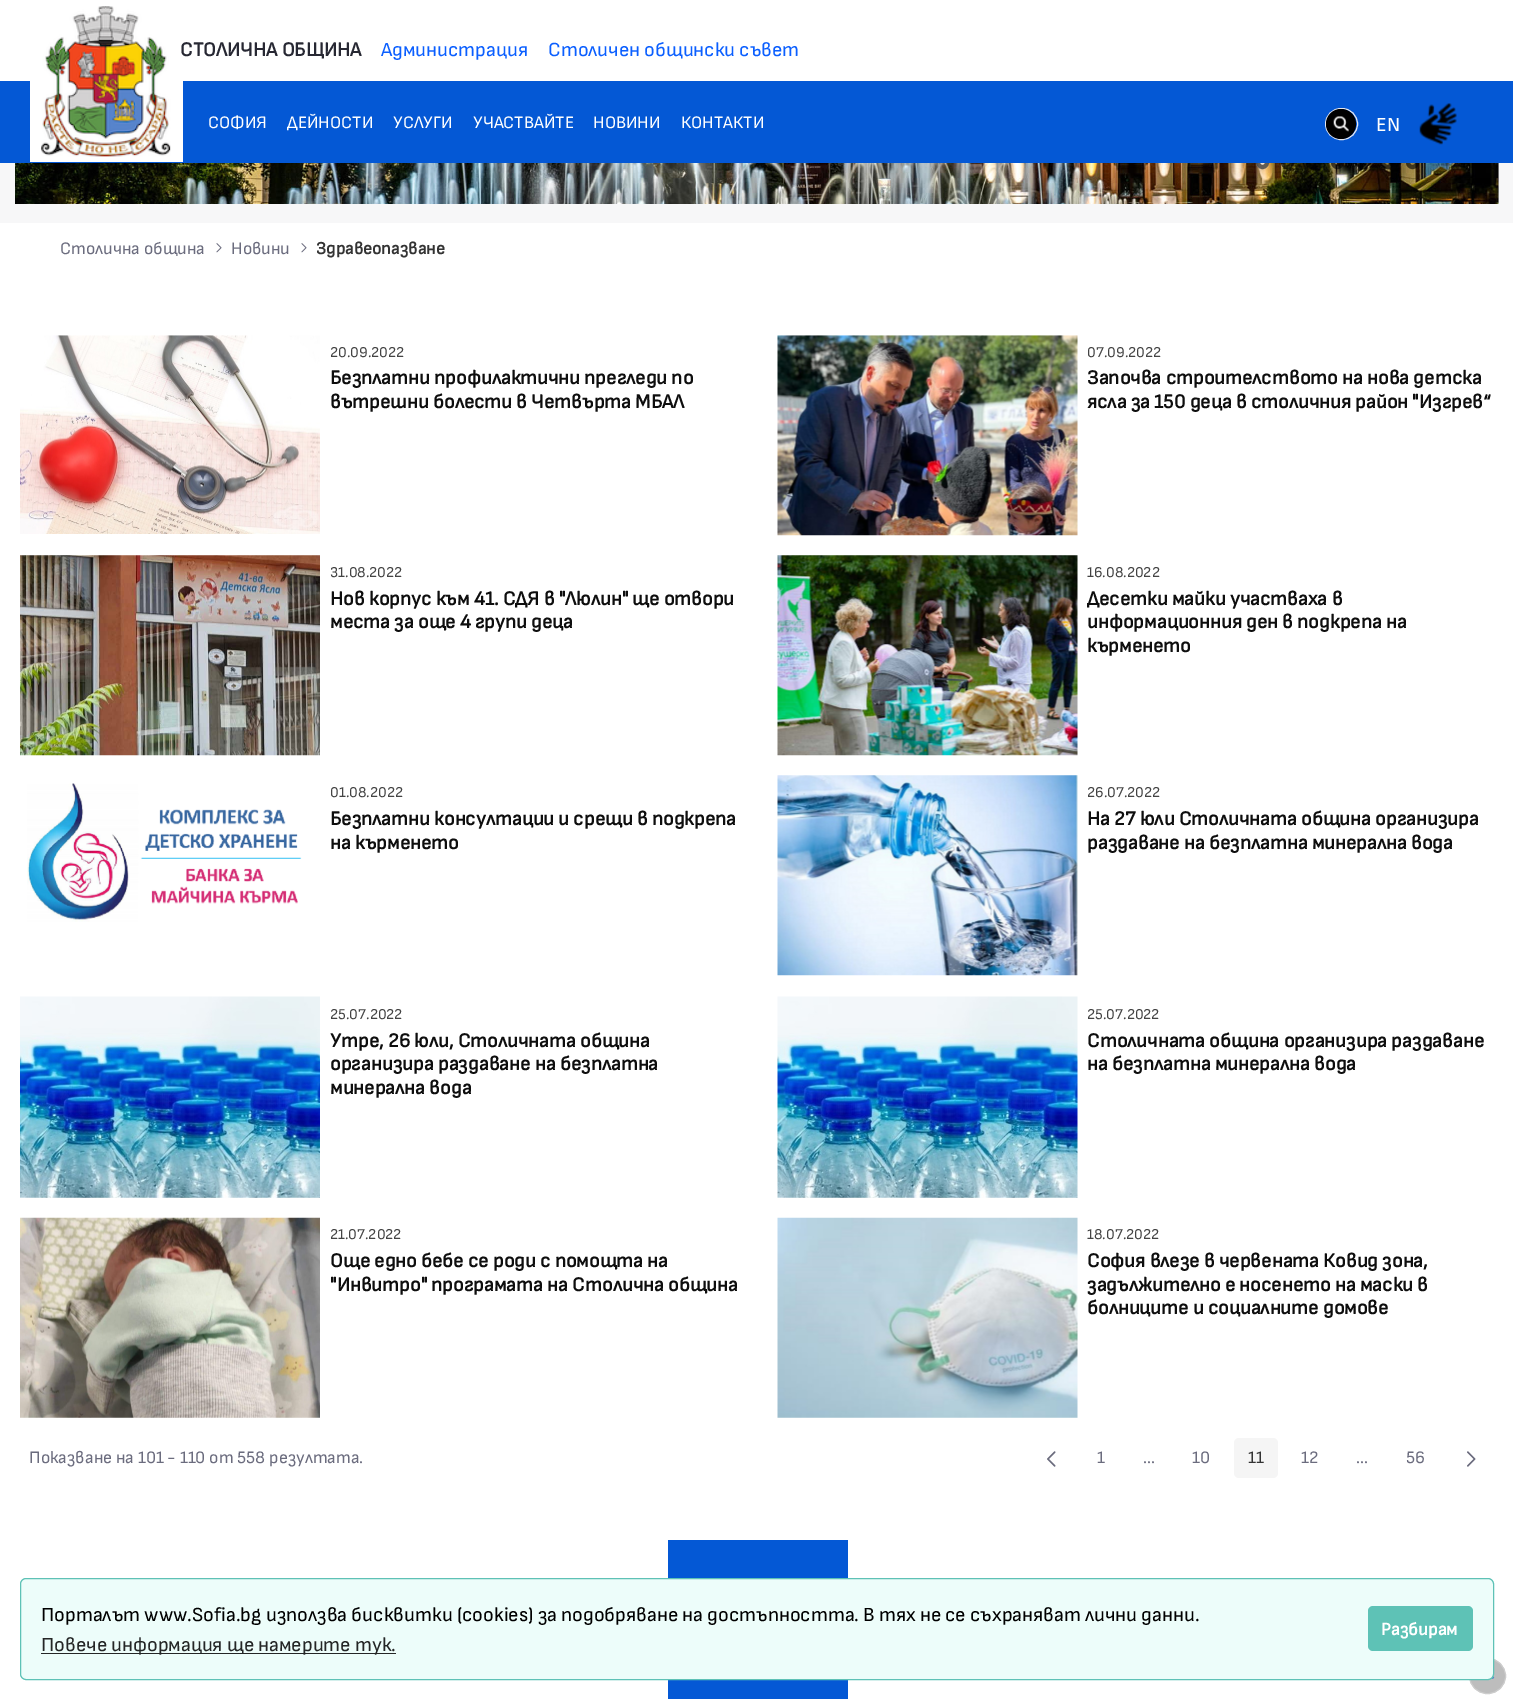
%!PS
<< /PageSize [1513 1699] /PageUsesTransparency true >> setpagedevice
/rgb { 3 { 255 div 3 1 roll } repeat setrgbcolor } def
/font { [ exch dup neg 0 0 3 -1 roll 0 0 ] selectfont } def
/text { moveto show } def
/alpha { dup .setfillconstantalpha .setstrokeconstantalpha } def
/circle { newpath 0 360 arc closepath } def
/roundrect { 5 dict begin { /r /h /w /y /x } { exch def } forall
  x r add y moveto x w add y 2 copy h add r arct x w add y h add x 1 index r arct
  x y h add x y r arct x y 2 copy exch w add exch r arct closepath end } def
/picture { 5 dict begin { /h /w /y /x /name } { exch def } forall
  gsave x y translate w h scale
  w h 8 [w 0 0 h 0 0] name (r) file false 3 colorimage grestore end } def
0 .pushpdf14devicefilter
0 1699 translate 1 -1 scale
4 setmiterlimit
255 255 255 rgb
0 0 1513 1699 rectfill
247 247 248 rgb
0 163 1513 60 rectfill
(img_04.rgb) 15 163 1484 41 picture
0.6 alpha
255 255 255 rgb
1262.5 162.5 6.5 circle fill
0 0 0 rgb
4 setlinewidth
1262.5 162.5 4.5 circle stroke
1287.5 162.5 4.5 circle stroke
1312.5 162.5 4.5 circle stroke
1337.5 162.5 4.5 circle stroke
1362.5 162.5 4.5 circle stroke
1387.5 162.5 4.5 circle stroke
1412.5 162.5 4.5 circle stroke
1 alpha
4 88 213 rgb
0 81 1513 82 rectfill
(img_01.rgb) 30 6 153 156 picture
231 231 237 rgb
1 setlinewidth
1325.5 108.5 32 31 15.5 roundrect stroke
0 0 0 rgb
1341 124 15 circle fill
(img_02.rgb) 1333 116 16 16 picture
(img_03.rgb) 1419 103 38 42 picture
(img_05.rgb) 216 243 6 10 picture
(img_05.rgb) 301 243 6 10 picture
(img_06.rgb) 20 335 300 199 picture
(img_07.rgb) 777 335 301 201 picture
(img_08.rgb) 20 555 300 201 picture
(img_09.rgb) 777 555 301 201 picture
(img_10.rgb) 27 783 275 139 picture
(img_11.rgb) 777 775 301 201 picture
(img_12.rgb) 20 996 300 202 picture
(img_13.rgb) 777 996 301 202 picture
(img_14.rgb) 20 1217 300 201 picture
(img_15.rgb) 777 1217 301 201 picture
(img_16.rgb) 1047 1451 9 16 picture
245 245 245 rgb
1234 1438 44 40 5 roundrect fill
(img_17.rgb) 1467 1451 9 16 picture
4 88 213 rgb
668 1540 180 159 rectfill
189 189 189 rgb
1469.5 1658.5 36 35 17.5 roundrect gsave fill grestore
204 204 204 rgb
stroke
(img_18.rgb) 1491 1676 4 3 picture
237 253 250 rgb
20.5 1578.5 1473 101 5.5 roundrect gsave fill grestore
94 194 182 rgb
stroke
36 38 38 rgb
41 1653 355 1 rectfill
94 194 182 rgb
1368 1606 105 45 5 roundrect fill
/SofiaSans-Bold 20 font
39 40 51 rgb
(СТОЛИЧНА ОБЩИНА) 180 56 text
/SofiaSans-Regular 20 font
11 95 255 rgb
(Администрация) 381 56 text
(Столичен общински съвет) 548 56 text
255 255 255 rgb
(EN) 1376 131 text
/SofiaSans-Regular 17.5 font
(СОФИЯ) 208 128 text
(ДЕЙНОСТИ) 287 128 text
(УСЛУГИ) 393 128 text
(УЧАСТВАЙТЕ) 473 128 text
(НОВИНИ) 593 128 text
(КОНТАКТИ) 681 128 text
107 108 126 rgb
(Столична община) 60 254 text
(Новини) 231 254 text
/SofiaSans-Bold 17.5 font
51 51 51 rgb
(Здравеопазване) 316 254 text
/SofiaSans-Regular 15 font
68 68 68 rgb
(20.09.2022) 330 357 text
/SofiaSans-Bold 20 font
14 14 14 rgb
(Безплатни профилактични прегледи по) 330 384 text
(вътрешни болести в Четвърта МБАЛ) 330 408 text
/SofiaSans-Regular 15 font
68 68 68 rgb
(07.09.2022) 1087 357 text
/SofiaSans-Bold 20 font
14 14 14 rgb
(Започва строителството на нова детска) 1087 384 text
(ясла за 150 деца в столичния район "Изгрев“) 1087 408 text
/SofiaSans-Regular 15 font
68 68 68 rgb
(31.08.2022) 330 577 text
/SofiaSans-Bold 20 font
14 14 14 rgb
(Нов корпус към 41. СДЯ в "Люлин" ще отвори) 330 605 text
(места за още 4 групи деца) 330 628 text
/SofiaSans-Regular 15 font
68 68 68 rgb
(16.08.2022) 1087 577 text
/SofiaSans-Bold 20 font
14 14 14 rgb
(Десетки майки участваха в) 1087 605 text
(информационния ден в подкрепа на) 1087 628 text
(кърменето) 1087 652 text
/SofiaSans-Regular 15 font
68 68 68 rgb
(01.08.2022) 330 797 text
/SofiaSans-Bold 20 font
14 14 14 rgb
(Безплатни консултации и срещи в подкрепа) 330 825 text
(на кърменето) 330 849 text
/SofiaSans-Regular 15 font
68 68 68 rgb
(26.07.2022) 1087 797 text
/SofiaSans-Bold 20 font
14 14 14 rgb
(На 27 юли Столичната община организира) 1087 825 text
(раздаване на безплатна минерална вода) 1087 849 text
/SofiaSans-Regular 15 font
68 68 68 rgb
(25.07.2022) 330 1019 text
/SofiaSans-Bold 20 font
14 14 14 rgb
(Утре, 26 юли, Столичната община) 330 1047 text
(организира раздаване на безплатна) 330 1070 text
(минерална вода) 330 1094 text
/SofiaSans-Regular 15 font
68 68 68 rgb
(25.07.2022) 1087 1019 text
/SofiaSans-Bold 20 font
14 14 14 rgb
(Столичната община организира раздаване) 1087 1047 text
(на безплатна минерална вода) 1087 1070 text
/SofiaSans-Regular 15 font
68 68 68 rgb
(21.07.2022) 330 1239 text
/SofiaSans-Bold 20 font
14 14 14 rgb
(Още едно бебе се роди с помощта на) 330 1267 text
("Инвитро" програмата на Столична община) 330 1291 text
/SofiaSans-Regular 15 font
68 68 68 rgb
(18.07.2022) 1087 1239 text
/SofiaSans-Bold 20 font
14 14 14 rgb
(София влезе в червената Ковид зона,) 1087 1267 text
(задължително е носенето на маски в) 1087 1291 text
(болниците и социалните домове) 1087 1314 text
/SofiaSans-Regular 17.5 font
107 108 126 rgb
(Показване на 101 - 110 от 558 резултата.) 29 1463 text
(1) 1097 1463 text
(...) 1143 1463 text
(10) 1192 1463 text
51 51 51 rgb
(11) 1248 1463 text
107 108 126 rgb
(12) 1301 1463 text
(...) 1356 1463 text
(56) 1406 1463 text
/SofiaSans-Regular 20 font
0 0 0 rgb
(Порталът www.Sofia.bg използва бисквитки \(cookies\) за подобряване на достъпността. В тях не се съхраняват лични данни.) 41 1621 text
36 38 38 rgb
(Повече информация ще намерите тук.) 41 1651 text
/SofiaSans-Bold 18 font
255 255 255 rgb
(Разбирам) 1381 1635 text
.poppdf14devicefilter showpage
